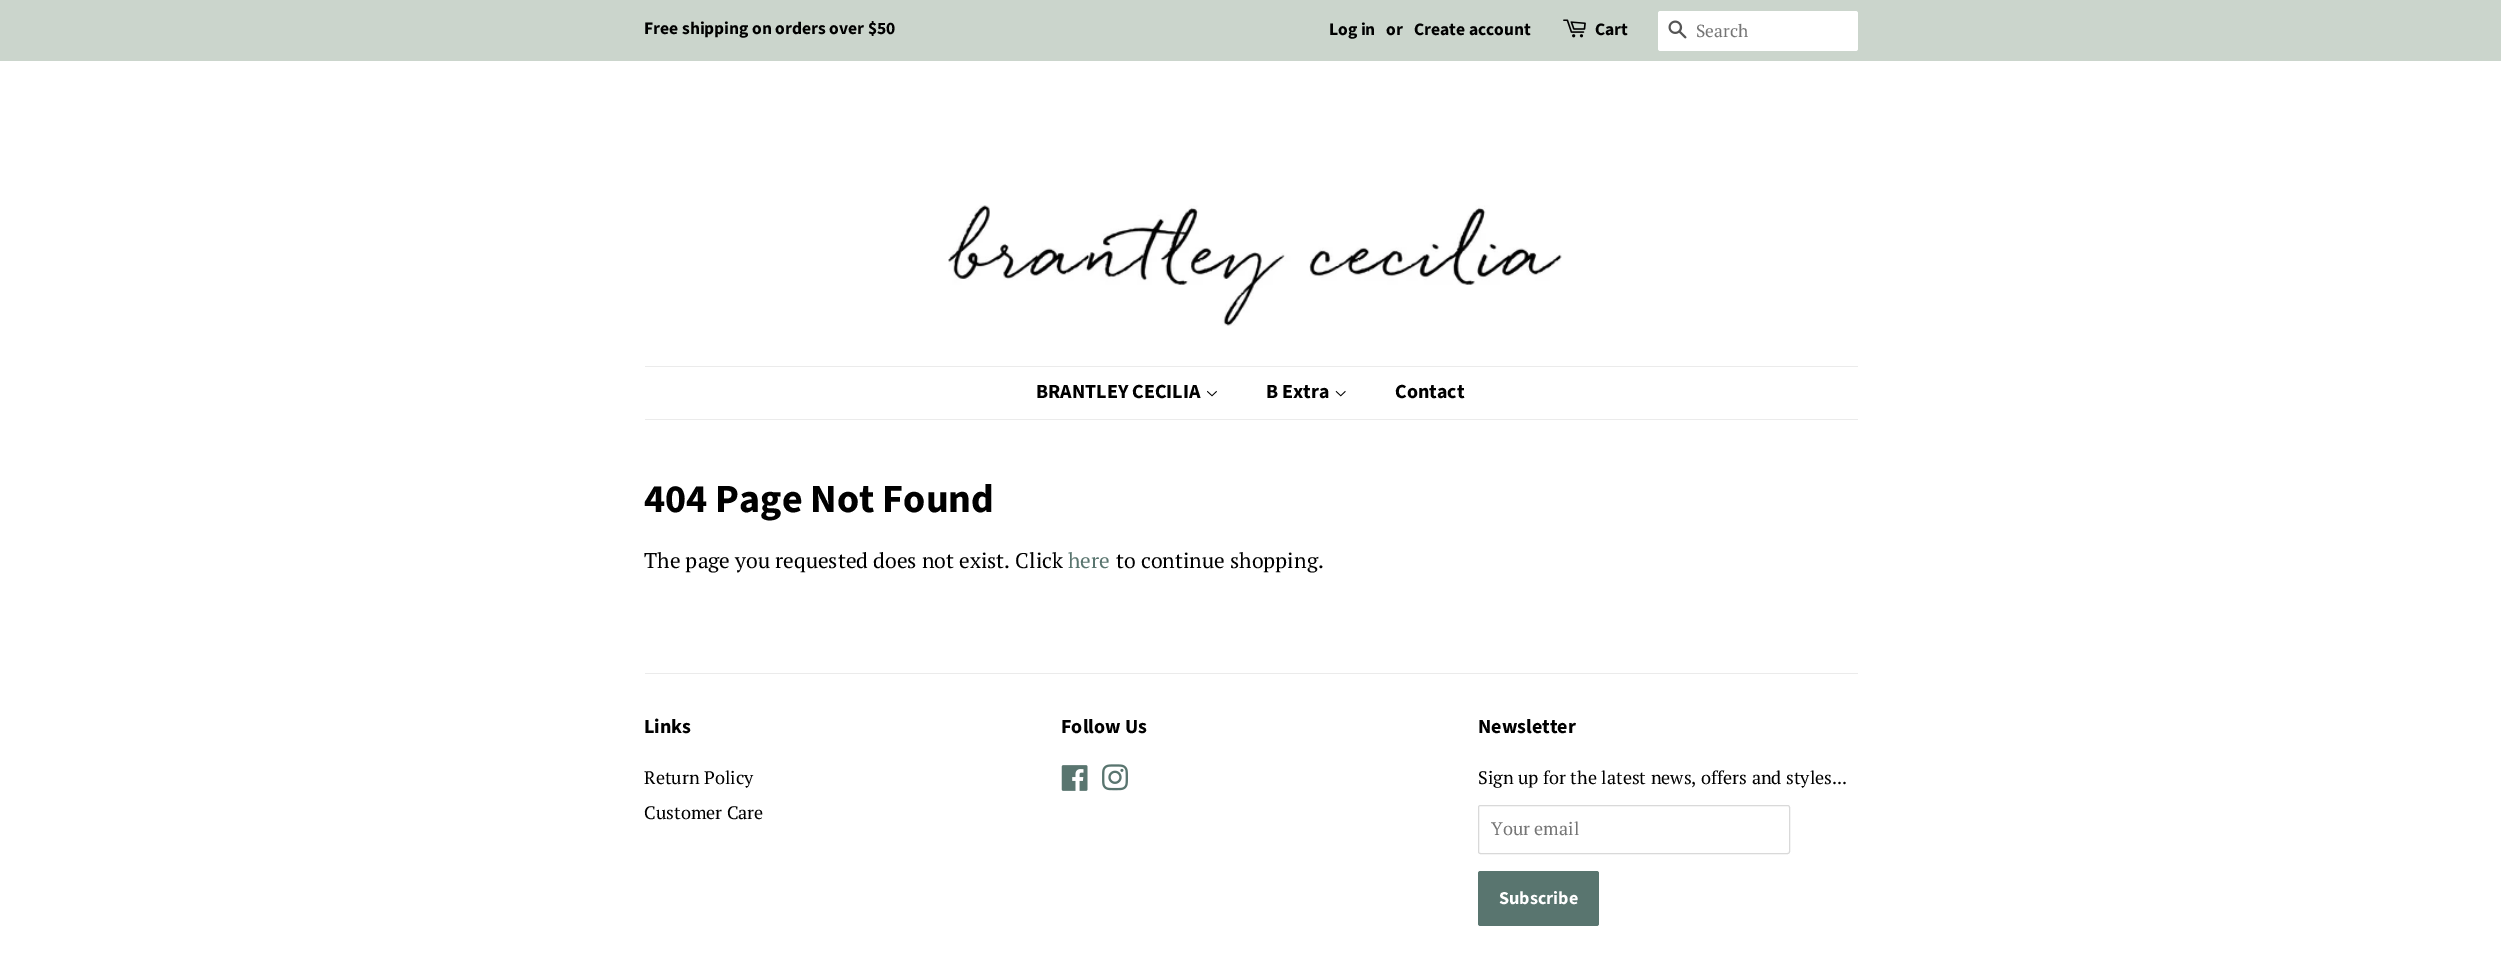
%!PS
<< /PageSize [2501 957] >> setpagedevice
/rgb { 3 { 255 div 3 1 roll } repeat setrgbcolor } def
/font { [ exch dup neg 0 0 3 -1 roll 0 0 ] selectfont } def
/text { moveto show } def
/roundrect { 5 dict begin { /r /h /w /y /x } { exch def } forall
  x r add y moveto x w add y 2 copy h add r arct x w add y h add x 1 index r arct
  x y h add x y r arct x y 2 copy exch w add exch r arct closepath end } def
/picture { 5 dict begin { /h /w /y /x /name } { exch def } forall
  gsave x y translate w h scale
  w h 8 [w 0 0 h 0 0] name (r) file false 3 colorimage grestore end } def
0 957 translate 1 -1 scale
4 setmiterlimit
255 255 255 rgb
0 0 2501 957 rectfill
203 213 204 rgb
0 0 2501 61 rectfill
(img_01.rgb) 1563 19 23 19 picture
255 255 255 rgb
1658 11 200 40 2.5 roundrect fill
(img_02.rgb) 1668 20 19 19 picture
(img_03.rgb) 948 205 614 121 picture
235 235 235 rgb
645 366 1213 1 rectfill
645 419 1213 1 rectfill
(img_04.rgb) 1207 390 10 7 picture
(img_05.rgb) 1335 390 11 7 picture
645 673 1213 1 rectfill
(img_06.rgb) 1061 765 27 26 picture
(img_07.rgb) 1102 764 26 27 picture
217 217 217 rgb
1478.5 805.5 311 48 2 roundrect stroke
89 117 111 rgb
1478 871 121 55 2.5 roundrect fill
/SourceSansPro-Bold 17.5 font
0 0 0 rgb
(Free shipping on orders over $50) 644 34 text
(Log in) 1329 35 text
(or) 1386 35 text
(Create account) 1414 35 text
(Cart) 1595 35 text
/PTSerif-Regular 17.5 font
117 117 117 rgb
(Search) 1696 37 text
/SourceSansPro-Bold 20 font
0 0 0 rgb
(BRANTLEY CECILIA) 1036 398 text
(B Extra) 1266 398 text
(Contact) 1395 398 text
/SourceSansPro-Bold 40 font
(404 Page Not Found) 644 512 text
/PTSerif-Regular 21.25 font
(The page you requested does not exist. Click) 644 568 text
89 117 111 rgb
(here) 1068 568 text
0 0 0 rgb
(to continue shopping.) 1116 568 text
/SourceSansPro-Bold 20 font
(Links) 644 733 text
/PTSerif-Regular 18.1 font
(Return Policy) 644 784 text
(Customer Care) 644 819 text
/SourceSansPro-Bold 20 font
(Follow Us) 1061 733 text
(Newsletter) 1478 733 text
/PTSerif-Regular 18.1 font
(Sign up for the latest news, offers and styles...) 1478 784 text
117 117 117 rgb
(Your email) 1491 835 text
/SourceSansPro-Bold 18.1 font
255 255 255 rgb
(Subscribe) 1499 904 text
showpage
